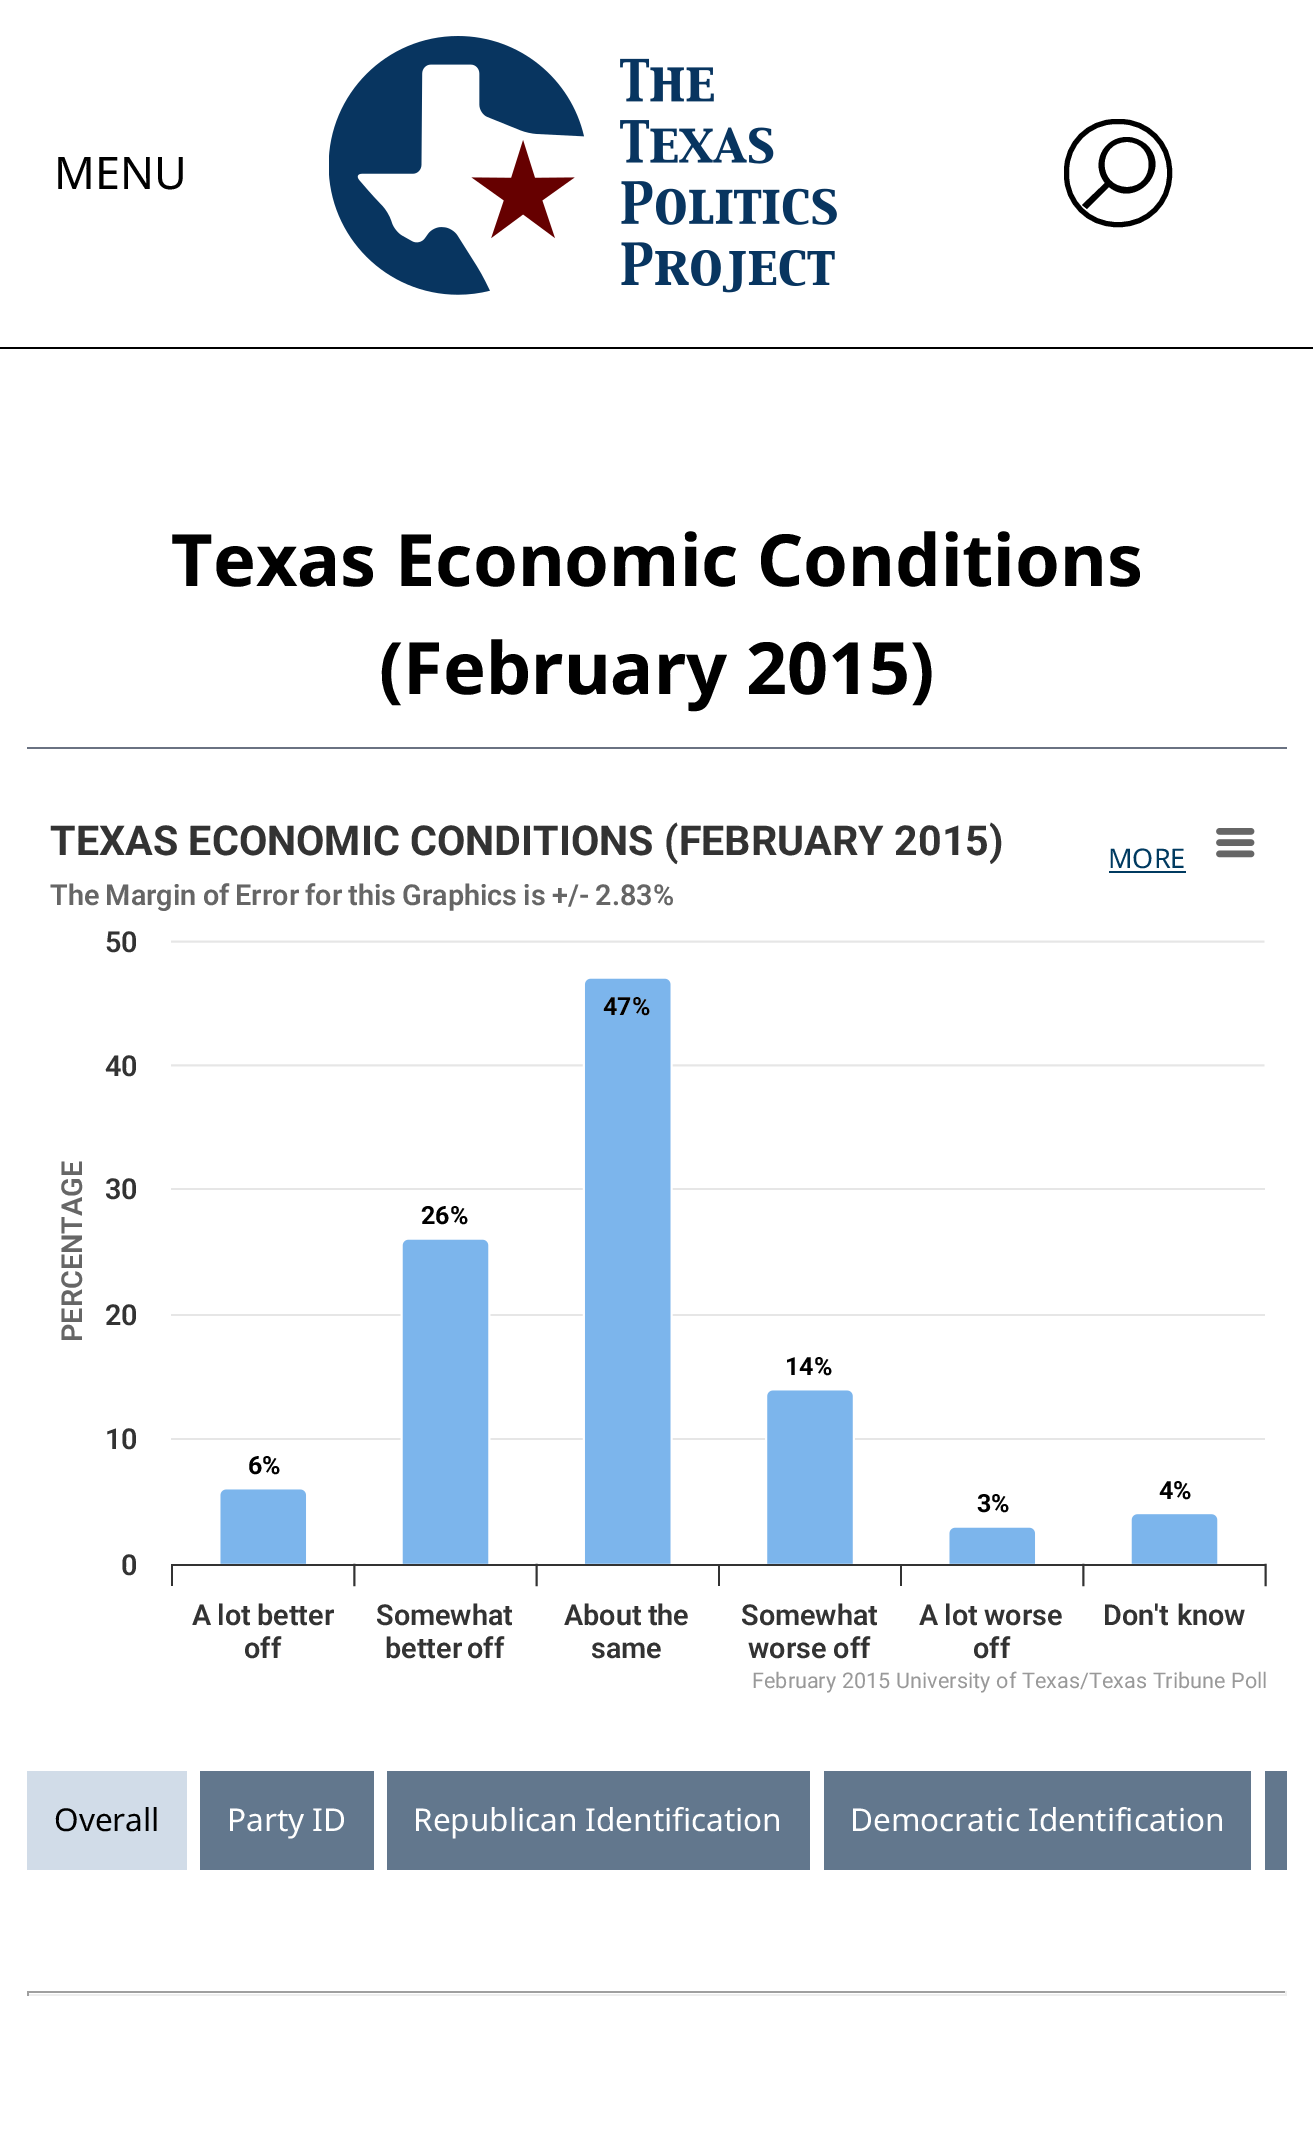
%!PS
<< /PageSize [1313 2139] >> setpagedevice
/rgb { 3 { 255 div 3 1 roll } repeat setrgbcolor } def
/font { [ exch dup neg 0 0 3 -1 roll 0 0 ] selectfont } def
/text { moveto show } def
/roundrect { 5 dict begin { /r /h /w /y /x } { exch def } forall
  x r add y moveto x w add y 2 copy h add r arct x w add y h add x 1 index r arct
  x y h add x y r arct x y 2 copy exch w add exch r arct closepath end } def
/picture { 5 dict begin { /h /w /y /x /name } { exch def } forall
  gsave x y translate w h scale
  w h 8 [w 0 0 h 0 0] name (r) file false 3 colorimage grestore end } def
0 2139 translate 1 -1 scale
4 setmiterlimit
255 255 255 rgb
0 0 1313 2139 rectfill
0 0 0 rgb
0 347 1313 2 rectfill
(img_01.rgb) 329 36 508 259 picture
5 setlinewidth
1066.5 121.5 103 103 49.5 roundrect stroke
1127 137 moveto -24 0 -37 27 -22 46 rcurveto -23 22 rlineto 5 4 rlineto 22 -22 rlineto 27 22 63 -17 38 -42 rcurveto -6 -5 -13 -8 -20 -8 rcurveto closepath 1127 142 moveto 29 0 29 45 0 45 rcurveto -30 0 -30 -45 0 -45 rcurveto closepath fill
106 114 130 rgb
27 747 1260 2 rectfill
(img_02.rgb) 171 828 1096 759 picture
0 58 96 rgb
1109 871 77 2 rectfill
209 220 232 rgb
27 1771 160 99 rectfill
98 119 141 rgb
200 1771 174 99 rectfill
387 1771 423 99 rectfill
824 1771 427 99 rectfill
1265 1771 22 99 rectfill
159 159 159 rgb
27 1991 1260 2 rectfill
238 238 238 rgb
1285 1991 2 5 rectfill
27 1994 1260 2 rectfill
159 159 159 rgb
27 1991 2 5 rectfill
/NotoSans-Regular 45 font
0 0 0 rgb
(MENU) 54 189 text
/NotoSans-Bold 72 font
(Texas Economic Conditions) 171 586 text
(\(February 2015\)) 379 694 text
/Roboto-Bold 41.25 font
51 51 51 rgb
(TEXAS ECONOMIC CONDITIONS \(FEBRUARY 2015\)) 50 855 text
/Roboto-SemiBold 28.8 font
102 102 102 rgb
50 905 moveto -1 0 32 (The Margin of Error for this Graphics is +/- 2.83%) widthshow
51 51 51 rgb
(50) 105 952 text
/Roboto-Bold 25 font
255 255 255 rgb
(47%) 603 1015 text
0 0 0 rgb
(47%) 603 1015 text
/Roboto-SemiBold 28.8 font
51 51 51 rgb
(40) 105 1076 text
102 102 102 rgb
gsave 82 1342 translate -90 rotate 0 0 moveto (PERCENTAGE) show grestore
51 51 51 rgb
(30) 105 1199 text
/Roboto-Bold 25 font
0 0 0 rgb
(26%) 421 1224 text
/Roboto-SemiBold 28.8 font
51 51 51 rgb
(20) 105 1325 text
/Roboto-Bold 25 font
0 0 0 rgb
(14%) 785 1375 text
/Roboto-SemiBold 28.8 font
51 51 51 rgb
(10) 105 1449 text
/Roboto-Bold 25 font
0 0 0 rgb
(6%) 248 1474 text
(4%) 1159 1499 text
(3%) 977 1512 text
/Roboto-SemiBold 28.8 font
51 51 51 rgb
(0) 121 1575 text
192 1625 moveto -1 0 32 (A lot better) widthshow
(Somewhat) 376 1625 text
564 1625 moveto -1 0 32 (About the) widthshow
(Somewhat) 741 1625 text
919 1625 moveto -1 0 32 (A lot worse) widthshow
1103 1625 moveto 1 0 32 (Don't know) widthshow
(off) 244 1658 text
385 1658 moveto -2 0 32 (better off) widthshow
(same) 591 1658 text
(worse off) 748 1658 text
(off) 973 1658 text
/Roboto-Regular 21.6 font
153 153 153 rgb
752 1688 moveto 0.5 0 32 (February 2015 University of Texas/Texas Tribune Poll) widthshow
/NotoSans-Regular 27 font
0 58 96 rgb
(MORE) 1108 868 text
/NotoSans-Regular 31.5 font
0 0 0 rgb
(Overall) 54 1831 text
255 255 255 rgb
(Party ID) 227 1831 text
(Republican Identification) 413 1831 text
(Democratic Identification) 850 1831 text
showpage
